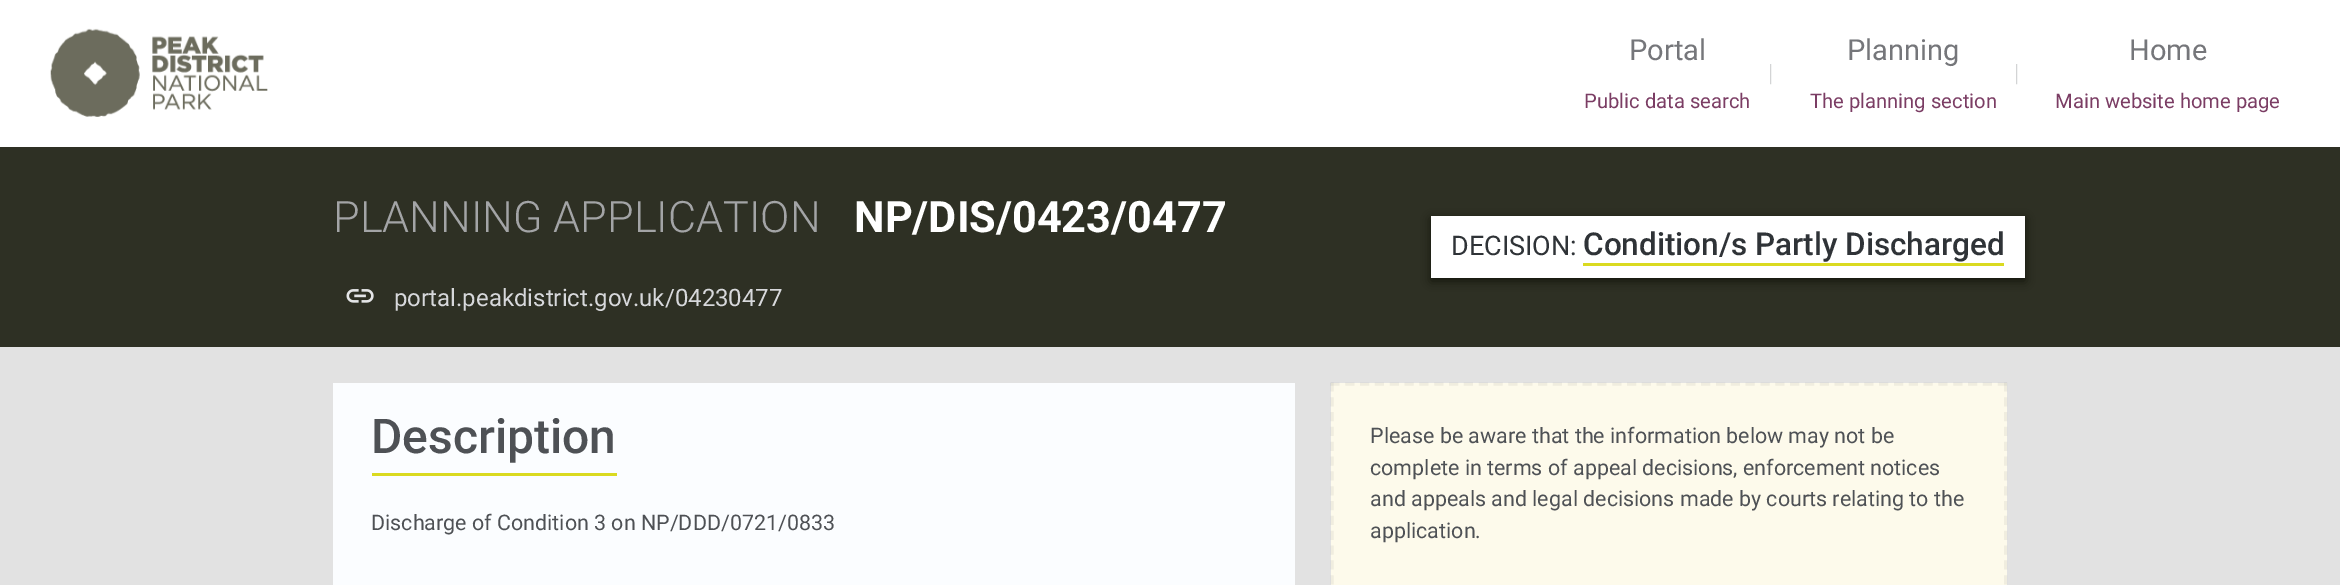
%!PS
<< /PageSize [2340 585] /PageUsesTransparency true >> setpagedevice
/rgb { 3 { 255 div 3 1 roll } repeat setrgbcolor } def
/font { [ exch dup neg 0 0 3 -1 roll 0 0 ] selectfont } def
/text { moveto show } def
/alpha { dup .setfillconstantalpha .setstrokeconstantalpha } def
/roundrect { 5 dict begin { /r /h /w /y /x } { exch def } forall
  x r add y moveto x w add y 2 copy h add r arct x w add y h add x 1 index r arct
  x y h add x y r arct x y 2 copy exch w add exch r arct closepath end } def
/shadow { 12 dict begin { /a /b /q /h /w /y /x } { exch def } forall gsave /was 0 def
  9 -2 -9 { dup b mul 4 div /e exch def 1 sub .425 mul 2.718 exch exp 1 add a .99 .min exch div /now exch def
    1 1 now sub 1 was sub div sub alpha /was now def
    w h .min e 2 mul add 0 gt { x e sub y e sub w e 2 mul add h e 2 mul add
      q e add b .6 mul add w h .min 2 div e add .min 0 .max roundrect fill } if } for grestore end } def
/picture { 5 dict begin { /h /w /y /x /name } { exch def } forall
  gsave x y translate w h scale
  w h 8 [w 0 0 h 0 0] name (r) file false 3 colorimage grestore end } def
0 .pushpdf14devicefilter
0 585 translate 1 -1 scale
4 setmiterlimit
226 226 226 rgb
0 0 2340 585 rectfill
255 255 255 rgb
0 0 2340 147 rectfill
(img_01.rgb) 50 28 218 89 picture
46 48 36 rgb
0 147 2340 200 rectfill
(img_02.rgb) 346 289 28 14 picture
7 8 3 rgb
1431 219 594 62 0 5 0.74 shadow
255 255 255 rgb
1431 216 594 62 rectfill
218 218 32 rgb
1583 263 421 3 rectfill
251 253 255 rgb
333 383 962 202 rectfill
218 218 32 rgb
372 473 245 3 rectfill
253 250 235 rgb
1331 383 676 202 rectfill
0.06 alpha
24 28 33 rgb
3 setlinewidth
[9 5.83] 0 setdash
1330.5 384 moveto 676.5 0 rlineto stroke
2005.5 382.5 moveto 0 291 rlineto stroke
1332 382.5 moveto 0 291 rlineto stroke
/Roboto-Regular 29 font
1 alpha
117 118 122 rgb
(Portal) 1629 60 text
/Roboto-Regular 20.2 font
123 61 100 rgb
(Public data search) 1584 108 text
/Roboto-Light 24 font
211 212 213 rgb
(|) 1768 81 text
/Roboto-Regular 29 font
117 118 122 rgb
(Planning) 1847 60 text
/Roboto-Regular 20.2 font
123 61 100 rgb
(The planning section) 1810 108 text
/Roboto-Light 24 font
211 212 213 rgb
(|) 2014 81 text
/Roboto-Regular 29 font
117 118 122 rgb
(Home) 2129 60 text
/Roboto-Regular 20.2 font
123 61 100 rgb
(Main website home page) 2055 108 text
/Roboto-Light 43.25 font
163 164 166 rgb
(PLANNING APPLICATION) 333 232 text
/Roboto-Bold 43.25 font
255 255 255 rgb
(NP/DIS/0423/0477) 854 232 text
/Roboto-Regular 24 font
215 216 219 rgb
(portal.peakdistrict.gov.uk/04230477) 394 306 text
/Roboto-Regular 27 font
47 51 55 rgb
(DECISION:) 1451 255 text
/Roboto-Medium 31.5 font
(Condition/s Partly Discharged) 1583 255 text
/Roboto-Medium 48 font
78 81 85 rgb
(Description) 371 453 text
/Roboto-Regular 21.45 font
(Discharge of Condition 3 on NP/DDD/0721/0833) 371 530 text
(Please be aware that the information below may not be) 1370 443 text
(complete in terms of appeal decisions, enforcement notices) 1370 475 text
(and appeals and legal decisions made by courts relating to the) 1370 506 text
(application.) 1370 538 text
.poppdf14devicefilter showpage
